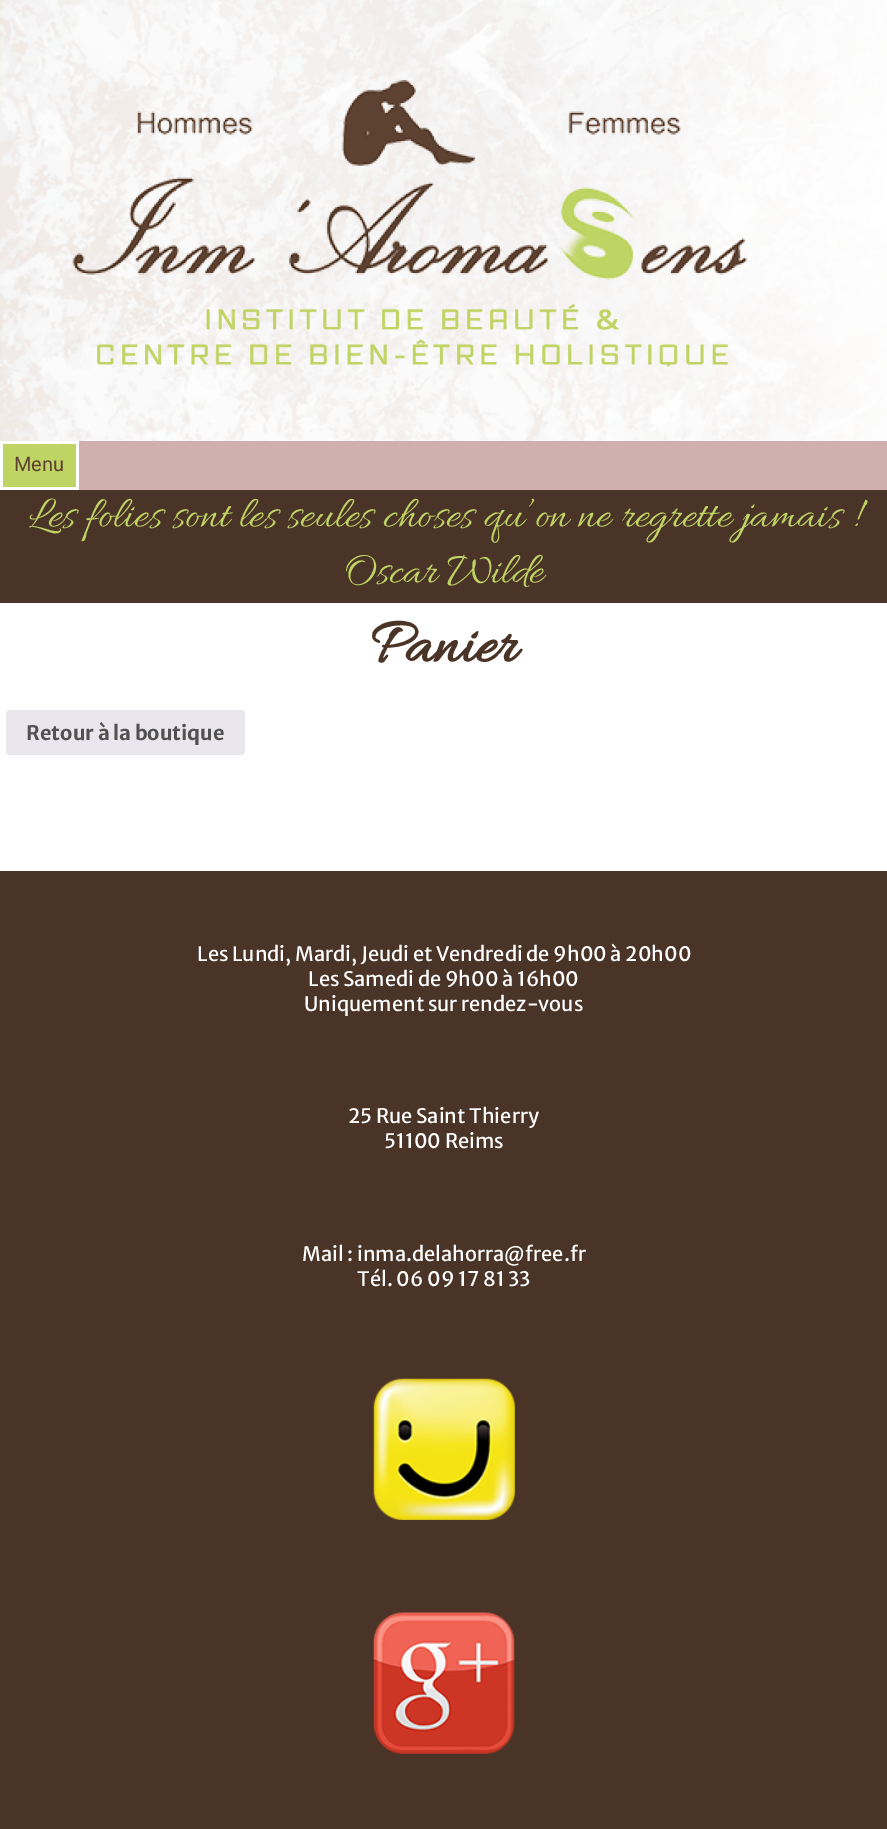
%!PS
<< /PageSize [887 1829] >> setpagedevice
/rgb { 3 { 255 div 3 1 roll } repeat setrgbcolor } def
/font { [ exch dup neg 0 0 3 -1 roll 0 0 ] selectfont } def
/text { moveto show } def
/roundrect { 5 dict begin { /r /h /w /y /x } { exch def } forall
  x r add y moveto x w add y 2 copy h add r arct x w add y h add x 1 index r arct
  x y h add x y r arct x y 2 copy exch w add exch r arct closepath end } def
/picture { 5 dict begin { /h /w /y /x /name } { exch def } forall
  gsave x y translate w h scale
  w h 8 [w 0 0 h 0 0] name (r) file false 3 colorimage grestore end } def
0 1829 translate 1 -1 scale
4 setmiterlimit
255 255 255 rgb
0 0 887 1829 rectfill
(img_01.rgb) 0 0 887 441 picture
(img_02.rgb) 72 80 675 287 picture
208 175 174 rgb
79 441 808 49 rectfill
191 212 100 rgb
3 444 73 43 rectfill
74 52 39 rgb
0 490 887 113 rectfill
233 230 237 rgb
6 710 239 45 4 roundrect fill
74 52 39 rgb
0 871 887 958 rectfill
(img_03.rgb) 373 1378 142 142 picture
(img_04.rgb) 373 1612 142 142 picture
/Roboto-Regular 20 font
93 66 49 rgb
(Menu) 14 471 text
/Allura-Regular 45 font
191 212 100 rgb
(Les folies sont les seules choses qu’on ne regrette jamais !) 29 526 text
(Oscar Wilde) 344 582 text
/Allura-Bold 65 font
74 52 39 rgb
(Panier) 370 661 text
/MerriweatherSans-Bold 20 font
81 81 81 rgb
(Retour à la boutique) 26 740 text
/MerriweatherSans-Regular 20 font
255 255 255 rgb
(Les Lundi, Mardi, Jeudi et Vendredi de 9h00 à 20h00) 197 961 text
(Les Samedi de 9h00 à 16h00) 308 986 text
(Uniquement sur rendez-vous) 304 1011 text
(25 Rue Saint Thierry) 348 1123 text
(51100 Reims) 384 1148 text
(Mail : inma.delahorra@free.fr) 302 1261 text
(Tél. 06 09 17 81 33) 357 1286 text
showpage
